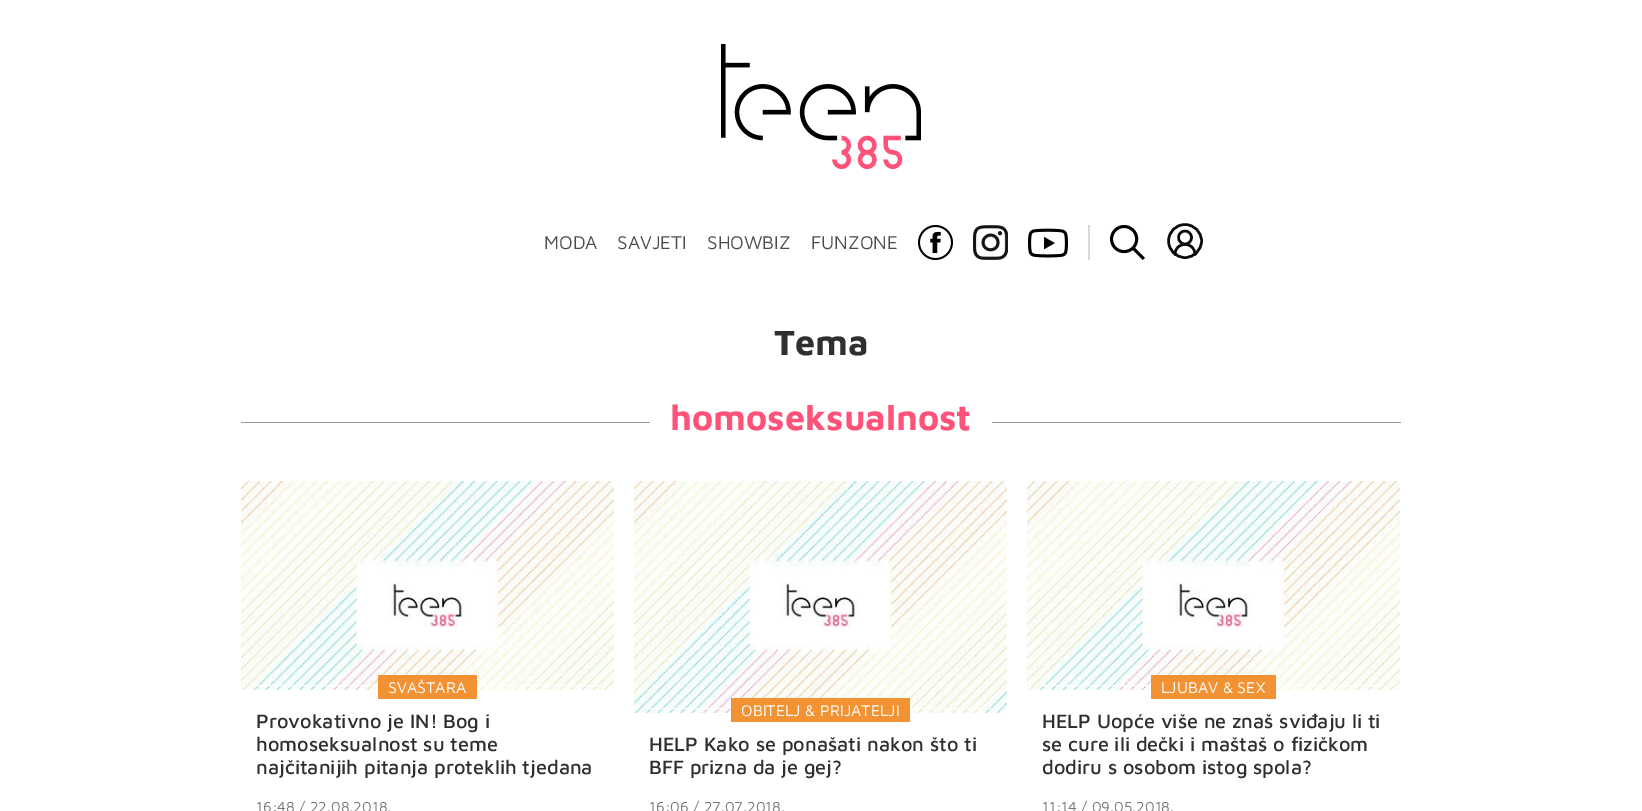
%!PS
<< /PageSize [1642 811] >> setpagedevice
/rgb { 3 { 255 div 3 1 roll } repeat setrgbcolor } def
/font { [ exch dup neg 0 0 3 -1 roll 0 0 ] selectfont } def
/text { moveto show } def
/circle { newpath 0 360 arc closepath } def
/picture { 5 dict begin { /h /w /y /x /name } { exch def } forall
  gsave x y translate w h scale
  w h 8 [w 0 0 h 0 0] name (r) file false 3 colorimage grestore end } def
0 811 translate 1 -1 scale
4 setmiterlimit
255 255 255 rgb
0 0 1642 811 rectfill
(img_01.rgb) 721 44 200 125 picture
(img_02.rgb) 918 225 35 35 picture
(img_03.rgb) 973 225 35 35 picture
217 217 217 rgb
1088 225 2 35 rectfill
(img_04.rgb) 1028 228 40 30 picture
(img_05.rgb) 1110 225 35 35 picture
10 10 10 rgb
2.5 setlinewidth
1 setlinecap
1 setlinejoin
1195 254.5 moveto 0 -13.5 -20 -13.5 -20 0 rcurveto stroke
0 setlinecap
0 setlinejoin
1185 237.5 6.5 circle stroke
1185 241 16.5 circle stroke
153 153 153 rgb
241 422 1160 1 rectfill
255 255 255 rgb
650 422 342 1 rectfill
(img_06.rgb) 241 481 373 209 picture
256 685 343 1 rectfill
243 146 51 rgb
378 675 99 24 rectfill
(img_07.rgb) 634 481 373 232 picture
255 255 255 rgb
649 708 343 1 rectfill
243 146 51 rgb
731 698 179 24 rectfill
(img_06.rgb) 1027 481 373 209 picture
255 255 255 rgb
1042 685 343 1 rectfill
243 146 51 rgb
1151 675 125 24 rectfill
/MavenPro-Regular 19 font
76 76 76 rgb
(MODA) 544 249 text
(SAVJETI) 617 249 text
(SHOWBIZ) 707 249 text
(FUNZONE) 811 249 text
/MavenPro-Bold 36 font
47 47 47 rgb
(Tema) 774 355 text
253 83 122 rgb
(homoseksualnost) 670 430 text
/MavenPro-Regular 16 font
255 255 255 rgb
(SVAŠTARA) 388 693 text
/MavenPro-Medium 20 font
47 47 47 rgb
(Provokativno je IN! Bog i) 256 728 text
(homoseksualnost su teme) 256 751 text
(najčitanijih pitanja proteklih tjedana) 256 774 text
/MavenPro-Regular 15 font
119 119 119 rgb
(16:48 / 22.08.2018.) 256 812 text
/MavenPro-Regular 16 font
255 255 255 rgb
(OBITELJ & PRIJATELJI) 741 716 text
/MavenPro-Medium 20 font
47 47 47 rgb
(HELP Kako se ponašati nakon što ti) 649 751 text
(BFF prizna da je gej?) 649 774 text
/MavenPro-Regular 15 font
119 119 119 rgb
(16:06 / 27.07.2018.) 649 812 text
/MavenPro-Regular 16 font
255 255 255 rgb
(LJUBAV & SEX) 1161 693 text
/MavenPro-Medium 20 font
47 47 47 rgb
(HELP Uopće više ne znaš sviđaju li ti) 1042 728 text
(se cure ili dečki i maštaš o fizičkom) 1042 751 text
(dodiru s osobom istog spola?) 1042 774 text
/MavenPro-Regular 15 font
119 119 119 rgb
(11:14 / 09.05.2018.) 1042 812 text
showpage
